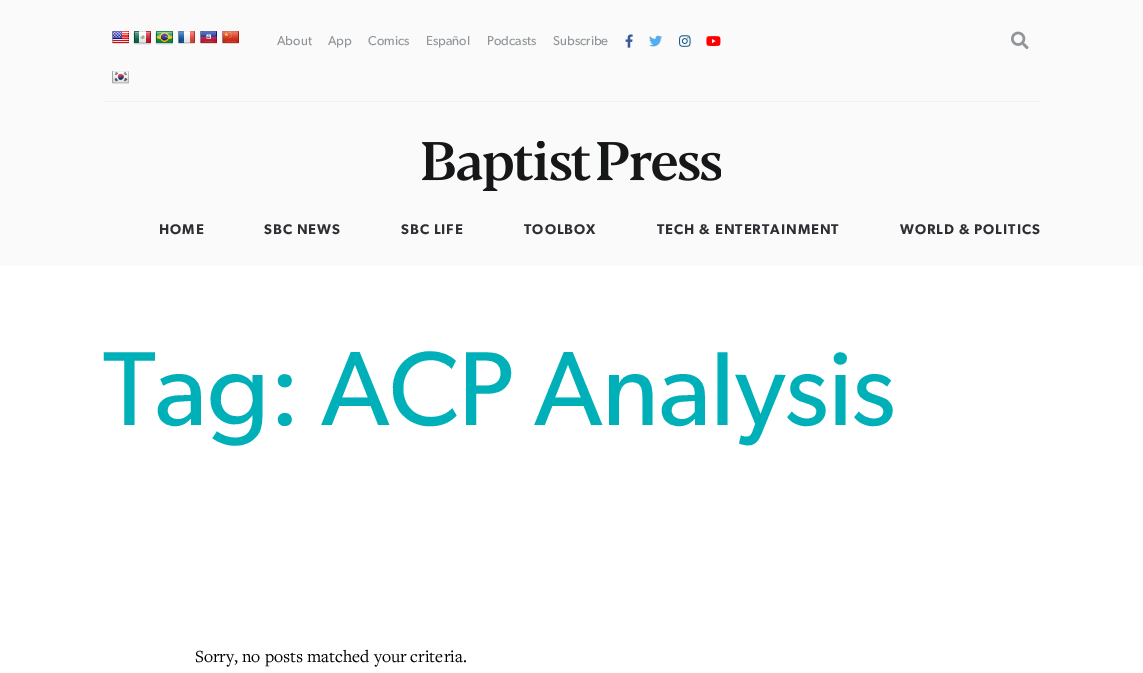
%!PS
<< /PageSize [1143 673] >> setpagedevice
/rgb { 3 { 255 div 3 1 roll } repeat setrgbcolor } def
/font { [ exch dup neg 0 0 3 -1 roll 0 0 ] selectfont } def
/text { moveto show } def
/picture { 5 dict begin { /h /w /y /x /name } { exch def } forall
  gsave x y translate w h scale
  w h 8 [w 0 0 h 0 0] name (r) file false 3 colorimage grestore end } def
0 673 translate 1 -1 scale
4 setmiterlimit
255 255 255 rgb
0 0 1143 673 rectfill
250 250 250 rgb
0 0 1143 266 rectfill
239 241 245 rgb
103 101 937 1 rectfill
(img_01.rgb) 112 31 17 13 picture
(img_02.rgb) 133 31 18 14 picture
(img_03.rgb) 155 31 18 14 picture
(img_04.rgb) 178 31 17 13 picture
(img_05.rgb) 200 31 17 13 picture
(img_06.rgb) 222 31 17 13 picture
(img_07.rgb) 112 71 17 13 picture
(img_08.rgb) 625 34 8 14 picture
(img_09.rgb) 649 35 13 12 picture
(img_10.rgb) 679 35 12 12 picture
(img_11.rgb) 706 36 15 10 picture
(img_12.rgb) 1011 31 18 19 picture
(img_13.rgb) 422 141 299 50 picture
/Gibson-Regular 13 font
143 149 153 rgb
(About) 277 45 text
(App) 328 45 text
(Comics) 368 45 text
(Español) 426 45 text
(Podcasts) 487 45 text
(Subscribe) 553 45 text
/Gibson-SemiBold 14.1 font
45 47 51 rgb
159 234 moveto 1 0 (HOME) ashow
264 234 moveto 1 0 (SBC NEWS) ashow
401 234 moveto 1 0 (SBC LIFE) ashow
524 234 moveto 1 0 (TOOLBOX) ashow
657 234 moveto 1 0 (TECH & ENTERTAINMENT) ashow
900 234 moveto 1 0 (WORLD & POLITICS) ashow
/Gibson-Regular 105.5 font
0 176 185 rgb
103 425 moveto -0.5 0 (Tag: ACP Analysis) ashow
/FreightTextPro-Regular 17.6 font
0 0 0 rgb
(Sorry, no posts matched your criteria.) 195 662 text
showpage
